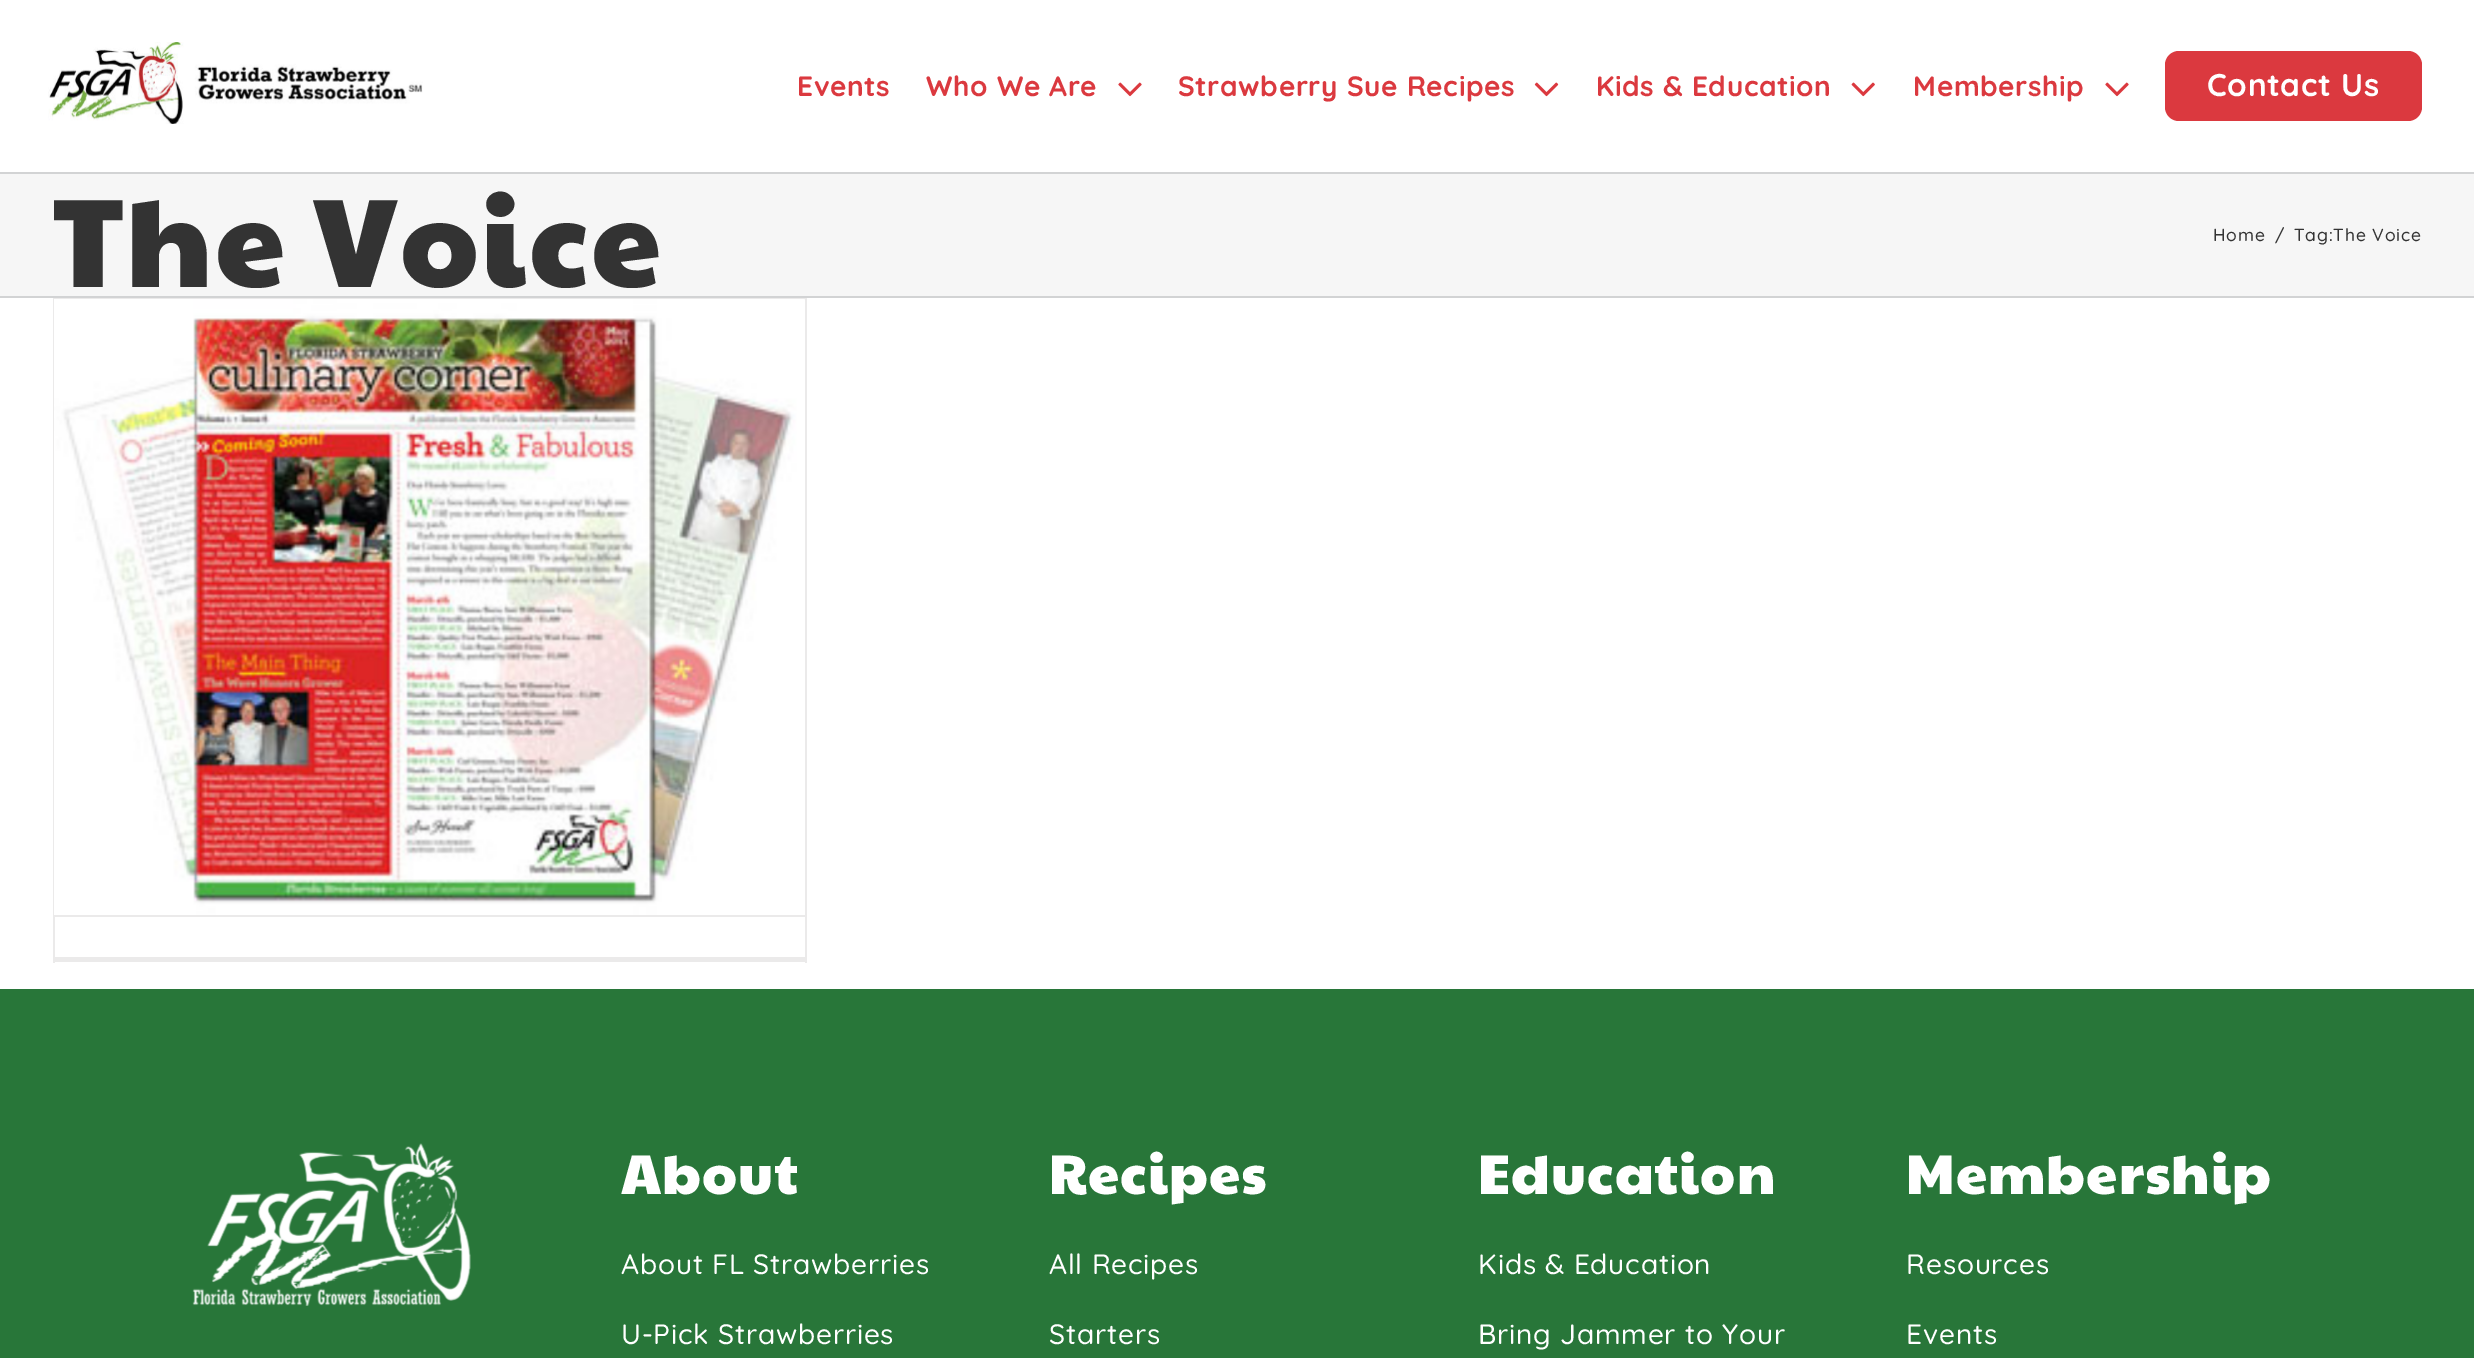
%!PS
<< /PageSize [2474 1358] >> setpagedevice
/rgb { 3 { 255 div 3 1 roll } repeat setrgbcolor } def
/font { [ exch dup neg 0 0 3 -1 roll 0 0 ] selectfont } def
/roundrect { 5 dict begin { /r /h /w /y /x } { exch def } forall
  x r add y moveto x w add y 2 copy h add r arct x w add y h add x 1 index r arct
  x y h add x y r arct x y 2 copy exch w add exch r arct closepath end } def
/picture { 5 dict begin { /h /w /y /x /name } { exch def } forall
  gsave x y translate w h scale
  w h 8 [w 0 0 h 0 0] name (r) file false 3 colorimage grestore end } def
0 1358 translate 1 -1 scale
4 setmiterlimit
255 255 255 rgb
0 0 2474 1358 rectfill
(img_01.rgb) 48 42 375 82 picture
(img_02.rgb) 1118 82 24 15 picture
(img_03.rgb) 1534 82 25 15 picture
(img_04.rgb) 1851 82 24 15 picture
(img_02.rgb) 2105 82 24 15 picture
219 57 63 rgb
2165 51 257 70 14 roundrect fill
246 246 246 rgb
0 174 2474 122 rectfill
210 211 212 rgb
0 172 2474 2 rectfill
0 296 2474 2 rectfill
235 234 234 rgb
53 298 754 2 rectfill
805 298 2 665 rectfill
53 957 754 5 rectfill
53 298 2 665 rectfill
54 915 751 2 rectfill
(img_05.rgb) 54 299 751 616 picture
40 118 57 rgb
0 989 2474 369 rectfill
(img_06.rgb) 192 1143 279 163 picture
/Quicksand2-Light 28 font
219 57 63 rgb
797 96 moveto 0.6 0 (Events) ashow
926 96 moveto 0.6 0 (Who We Are) ashow
1178 96 moveto 0.6 0 (Strawberry Sue Recipes) ashow
1596 96 moveto 0.6 0 (Kids & Education) ashow
1913 96 moveto 0.6 0 (Membership) ashow
/Quicksand2-Light 31.5 font
255 255 255 rgb
2207 96 moveto 0.6 0 (Contact Us) ashow
/PaytoneOne-Regular 126 font
51 51 51 rgb
53 287 moveto 2.5 0 (The Voice) ashow
/Quicksand-Light 17.5 font
2213 241 moveto 0.8 0 (Home) ashow
2275 241 moveto 0.8 0 (/) ashow
2294 241 moveto 0.8 0 (Tag:The Voice) ashow
/PaytoneOne-Regular 56 font
255 255 255 rgb
621 1194 moveto 1.1 0 (About) ashow
/Quicksand-Light 28 font
621 1274 moveto 0.8 0 (About FL Strawberries) ashow
621 1344 moveto 0.8 0 (U-Pick Strawberries) ashow
/PaytoneOne-Regular 56 font
1049 1194 moveto 1.1 0 (Recipes) ashow
/Quicksand-Light 28 font
1049 1274 moveto 0.8 0 (All Recipes) ashow
1049 1344 moveto 0.8 0 (Starters) ashow
/PaytoneOne-Regular 56 font
1478 1194 moveto 1.1 0 (Education) ashow
/Quicksand-Light 28 font
1478 1274 moveto 0.8 0 (Kids & Education) ashow
1478 1344 moveto 0.8 0 (Bring Jammer to Your) ashow
/PaytoneOne-Regular 56 font
1906 1194 moveto 1.1 0 (Membership) ashow
/Quicksand-Light 28 font
1906 1274 moveto 0.8 0 (Resources) ashow
1906 1344 moveto 0.8 0 (Events) ashow
showpage
